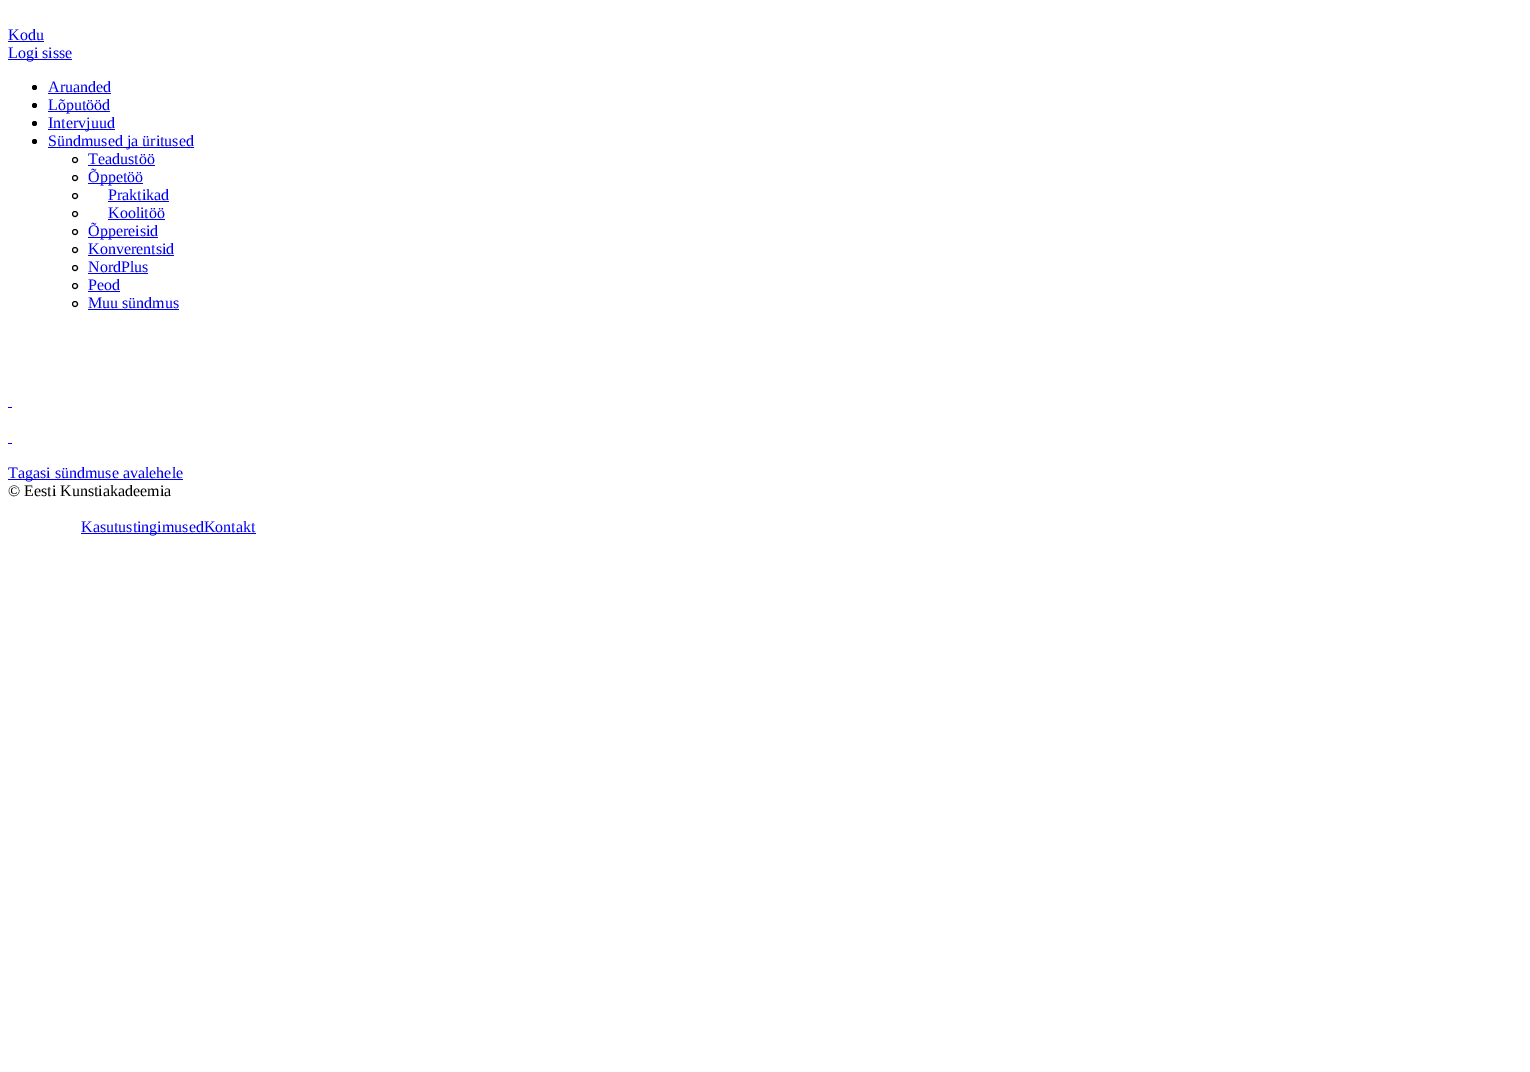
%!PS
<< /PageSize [1530 1072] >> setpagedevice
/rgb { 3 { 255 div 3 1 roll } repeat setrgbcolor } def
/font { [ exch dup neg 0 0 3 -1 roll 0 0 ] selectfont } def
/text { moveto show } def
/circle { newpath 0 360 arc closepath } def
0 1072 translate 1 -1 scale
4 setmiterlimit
255 255 255 rgb
0 0 1530 1072 rectfill
0 0 238 rgb
8 41 36 1 rectfill
8 59 64 1 rectfill
0 0 0 rgb
34.5 87.5 2.5 circle fill
0 0 238 rgb
48 93 63 1 rectfill
0 0 0 rgb
34.5 105.5 2.5 circle fill
0 0 238 rgb
48 111 62 1 rectfill
0 0 0 rgb
34.5 123.5 2.5 circle fill
0 0 238 rgb
48 129 67 1 rectfill
0 0 0 rgb
34.5 141.5 2.5 circle fill
0 0 238 rgb
48 147 146 1 rectfill
0 0 0 rgb
75 160 2.5 circle stroke
0 0 238 rgb
88 165 67 1 rectfill
0 0 0 rgb
75 178 2.5 circle stroke
0 0 238 rgb
88 183 55 1 rectfill
0 0 0 rgb
75 196 2.5 circle stroke
0 0 238 rgb
108 201 61 1 rectfill
0 0 0 rgb
75 214 2.5 circle stroke
0 0 238 rgb
108 219 57 1 rectfill
0 0 0 rgb
75 232 2.5 circle stroke
0 0 238 rgb
88 237 70 1 rectfill
0 0 0 rgb
75 250 2.5 circle stroke
0 0 238 rgb
88 255 86 1 rectfill
0 0 0 rgb
75 268 2.5 circle stroke
0 0 238 rgb
88 273 60 1 rectfill
0 0 0 rgb
75 286 2.5 circle stroke
0 0 238 rgb
88 291 32 1 rectfill
0 0 0 rgb
75 304 2.5 circle stroke
0 0 238 rgb
88 309 91 1 rectfill
8 407 4 1 rectfill
8 443 4 1 rectfill
8 479 175 1 rectfill
81 533 175 1 rectfill
/LiberationSerif-Regular 16 font
(Kodu) 8 40 text
(Logi sisse) 8 58 text
(Aruanded) 48 92 text
(Lõputööd) 48 110 text
(Intervjuud) 48 128 text
(Sündmused ja üritused) 48 146 text
(Teadustöö) 88 164 text
(Õppetöö) 88 182 text
(Praktikad) 108 200 text
(Koolitöö) 108 218 text
(Õppereisid) 88 236 text
(Konverentsid) 88 254 text
(NordPlus) 88 272 text
(Peod) 88 290 text
(Muu sündmus) 88 308 text
(Tagasi sündmuse avalehele) 8 478 text
0 0 0 rgb
(© Eesti Kunstiakadeemia) 8 496 text
0 0 238 rgb
(KasutustingimusedKontakt) 81 532 text
showpage
